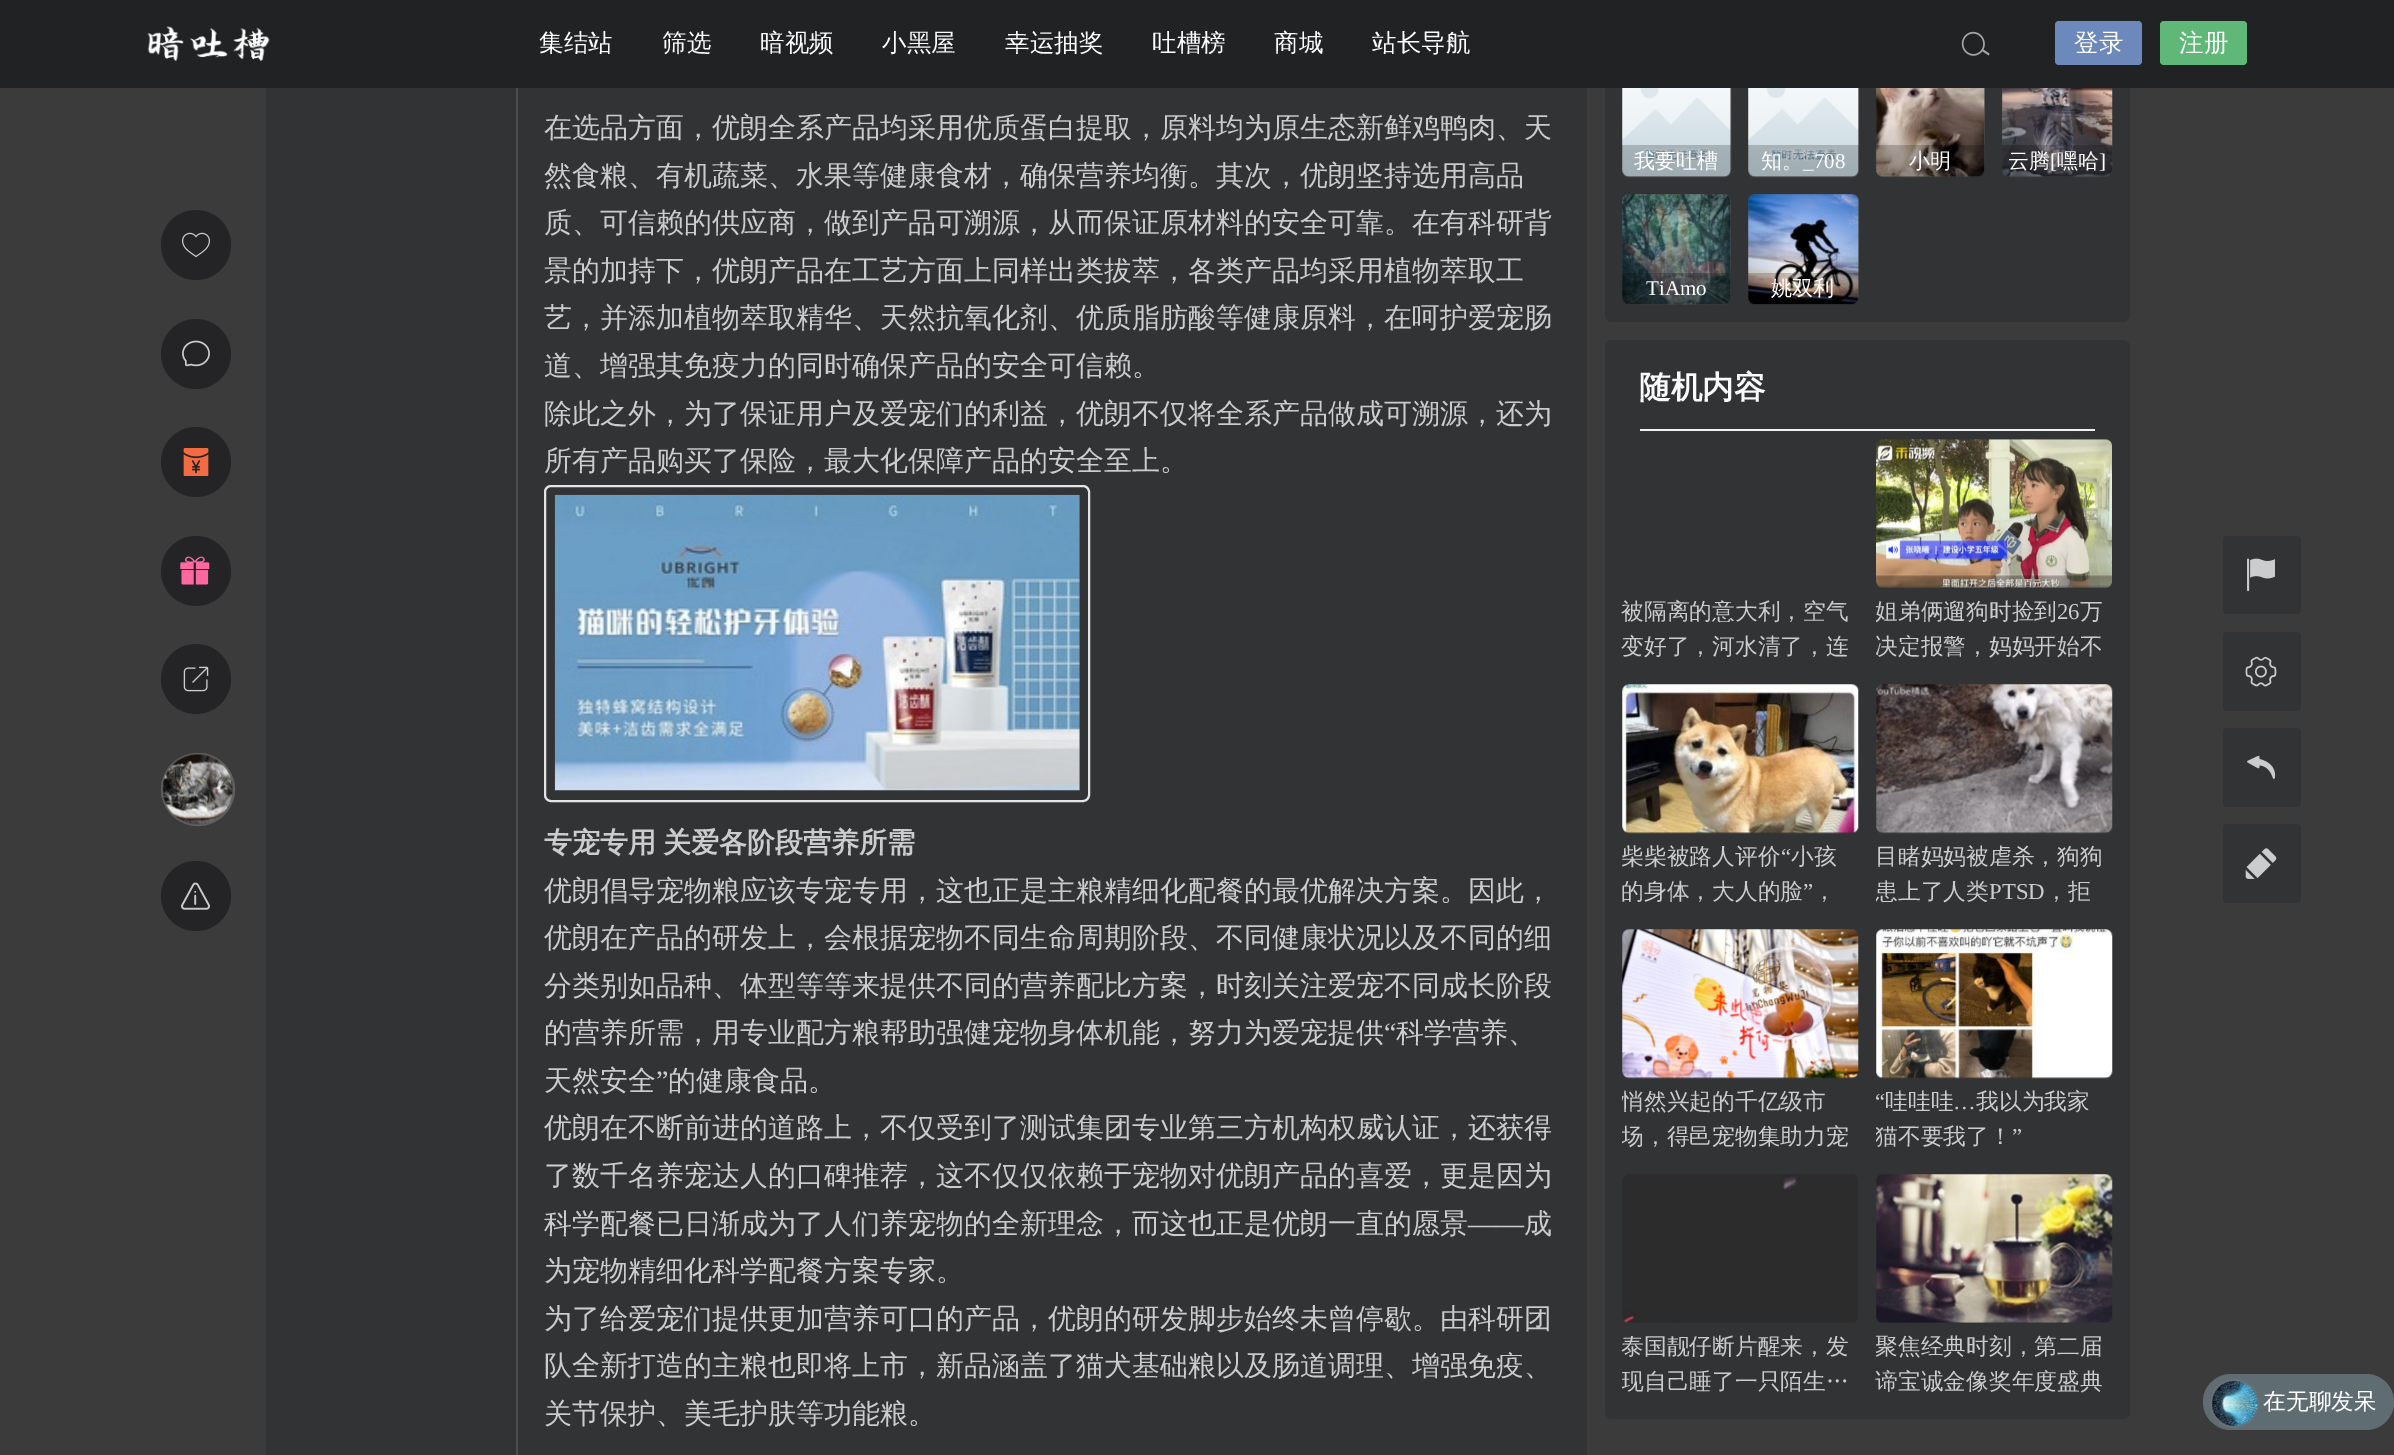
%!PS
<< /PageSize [2394 1455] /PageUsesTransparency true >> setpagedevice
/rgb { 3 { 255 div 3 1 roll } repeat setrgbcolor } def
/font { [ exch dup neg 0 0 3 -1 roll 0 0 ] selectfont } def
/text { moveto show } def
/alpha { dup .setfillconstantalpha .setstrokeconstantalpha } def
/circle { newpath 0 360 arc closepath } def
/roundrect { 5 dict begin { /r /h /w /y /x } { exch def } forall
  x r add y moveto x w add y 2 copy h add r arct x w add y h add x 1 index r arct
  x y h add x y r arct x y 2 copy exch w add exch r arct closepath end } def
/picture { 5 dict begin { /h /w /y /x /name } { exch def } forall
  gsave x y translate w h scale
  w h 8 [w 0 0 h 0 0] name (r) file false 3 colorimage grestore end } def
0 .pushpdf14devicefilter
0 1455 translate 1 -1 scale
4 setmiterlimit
59 59 59 rgb
0 0 2394 1455 rectfill
50 51 53 rgb
1605 -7 525 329 7 roundrect fill
76 76 77 rgb
1622 68 109 109 7 roundrect fill
1748 68 111 109 7 roundrect fill
1876 68 109 109 7 roundrect fill
2002 68 110 109 7 roundrect fill
32 34 35 rgb
0 0 2394 88 rectfill
(img_01.rgb) 147 26 123 35 picture
(img_02.rgb) 1961 31 29 25 picture
109 137 187 rgb
2055 21 87 44 4 roundrect fill
95 184 120 rgb
2160 21 87 44 4 roundrect fill
50 51 53 rgb
266 88 1321 1367 rectfill
36 36 38 rgb
196 245 35 circle fill
(img_03.rgb) 182 232 28 26 picture
196 354 35 circle fill
(img_04.rgb) 182 340 28 27 picture
196 462 35 circle fill
(img_05.rgb) 183 448 26 28 picture
196 571 35 circle fill
(img_06.rgb) 180 556 30 29 picture
196 679 35 circle fill
(img_07.rgb) 183 666 26 26 picture
81 81 81 rgb
161 753 74 73 36.5 roundrect fill
0.4 alpha
114 114 114 rgb
2 setlinewidth
162 754 72 71 35.5 roundrect stroke
1 alpha
(img_08.rgb) 162 754 71 71 picture
36 36 38 rgb
196 896 35 circle fill
(img_09.rgb) 181 882 29 28 picture
76 76 77 rgb
516 88 2 1367 rectfill
229 229 229 rgb
545 486 544 315 6 roundrect stroke
(img_10.rgb) 554 494 526 297 picture
(img_11.rgb) 1622 88 110 90 picture
0.2 alpha
0 0 0 rgb
1622 145 moveto 109 0 rlineto 0 25 rlineto 0 4 -3 7 -7 7 rcurveto -95 0 rlineto -4 0 -7 -3 -7 -7 rcurveto closepath fill
1 alpha
(img_12.rgb) 1748 88 111 90 picture
0.2 alpha
1748 145 moveto 111 0 rlineto 0 25 rlineto 0 4 -3 7 -7 7 rcurveto -97 0 rlineto -4 0 -7 -3 -7 -7 rcurveto closepath fill
1 alpha
(img_13.rgb) 1875 88 110 90 picture
0.2 alpha
1876 145 moveto 109 0 rlineto 0 25 rlineto 0 4 -3 7 -7 7 rcurveto -95 0 rlineto -4 0 -7 -3 -7 -7 rcurveto closepath fill
1 alpha
(img_14.rgb) 2001 88 112 90 picture
0.2 alpha
2002 145 moveto 110 0 rlineto 0 25 rlineto 0 4 -3 7 -7 7 rcurveto -96 0 rlineto -4 0 -7 -3 -7 -7 rcurveto closepath fill
1 alpha
76 76 77 rgb
1622 194 109 111 7 roundrect fill
(img_15.rgb) 1622 194 109 111 picture
0.2 alpha
0 0 0 rgb
1622 273 moveto 109 0 rlineto 0 25 rlineto 0 4 -3 7 -7 7 rcurveto -95 0 rlineto -4 0 -7 -3 -7 -7 rcurveto closepath fill
1 alpha
76 76 77 rgb
1748 194 111 111 7 roundrect fill
(img_16.rgb) 1748 194 111 111 picture
0.2 alpha
0 0 0 rgb
1748 273 moveto 111 0 rlineto 0 25 rlineto 0 4 -3 7 -7 7 rcurveto -97 0 rlineto -4 0 -7 -3 -7 -7 rcurveto closepath fill
1 alpha
50 51 53 rgb
1605 340 525 1079 7 roundrect fill
241 241 241 rgb
1640 429 455 2 rectfill
(img_17.rgb) 1876 439 236 149 picture
(img_18.rgb) 1622 684 237 150 picture
(img_19.rgb) 1876 684 237 150 picture
(img_20.rgb) 1622 929 237 150 picture
(img_21.rgb) 1876 929 237 150 picture
(img_22.rgb) 1622 1174 236 149 picture
(img_23.rgb) 1876 1174 237 149 picture
50 51 53 rgb
2223 536 78 78 4 roundrect fill
(img_24.rgb) 2247 558 28 34 picture
2223 632 78 79 4 roundrect fill
(img_25.rgb) 2245 656 32 31 picture
2223 728 78 79 4 roundrect fill
(img_26.rgb) 2247 755 29 24 picture
2223 824 78 79 4 roundrect fill
(img_27.rgb) 2245 848 32 31 picture
95 108 114 rgb
2203 1374 191 56 28 roundrect fill
103 110 114 rgb
2234.5 1403.5 24.5 circle fill
0.4 alpha
114 114 114 rgb
2234.5 1403.5 23.5 circle stroke
1 alpha
(img_28.rgb) 2211 1380 47 46 picture
/WenQuanYiZenHei-Medium 24.5 font
255 255 255 rgb
(集结站) 539 51 text
(筛选) 662 51 text
(暗视频) 760 51 text
(小黑屋) 882 51 text
(幸运抽奖) 1005 51 text
(吐槽榜) 1152 51 text
(商城) 1274 51 text
(站长导航) 1372 51 text
(登录) 2074 51 text
(注册) 2179 51 text
/WenQuanYiZenHei-Medium 28 font
202 204 205 rgb
(在选品方面，优朗全系产品均采用优质蛋白提取，原料均为原生态新鲜鸡鸭肉、天) 544 137 text
(然食粮、有机蔬菜、水果等健康食材，确保营养均衡。其次，优朗坚持选用高品) 544 185 text
(质、可信赖的供应商，做到产品可溯源，从而保证原材料的安全可靠。在有科研背) 544 232 text
(景的加持下，优朗产品在工艺方面上同样出类拔萃，各类产品均采用植物萃取工) 544 280 text
(艺，并添加植物萃取精华、天然抗氧化剂、优质脂肪酸等健康原料，在呵护爱宠肠) 544 327 text
(道、增强其免疫力的同时确保产品的安全可信赖。) 544 375 text
(除此之外，为了保证用户及爱宠们的利益，优朗不仅将全系产品做成可溯源，还为) 544 423 text
(所有产品购买了保险，最大化保障产品的安全至上。) 544 470 text
/WenQuanYiZenHei-Bold 28 font
544 852 moveto -1 0 32 (专宠专用 关爱各阶段营养所需) widthshow
/WenQuanYiZenHei-Medium 28 font
(优朗倡导宠物粮应该专宠专用，这也正是主粮精细化配餐的最优解决方案。因此，) 544 900 text
(优朗在产品的研发上，会根据宠物不同生命周期阶段、不同健康状况以及不同的细) 544 947 text
(分类别如品种、体型等等来提供不同的营养配比方案，时刻关注爱宠不同成长阶段) 544 995 text
(的营养所需，用专业配方粮帮助强健宠物身体机能，努力为爱宠提供) 544 1042 text
/LiberationSerif-Regular 28 font
(“) 1384 1042 text
/WenQuanYiZenHei-Medium 28 font
(科学营养、) 1396 1042 text
(天然安全) 544 1090 text
/LiberationSerif-Regular 28 font
(”) 656 1090 text
/WenQuanYiZenHei-Medium 28 font
(的健康食品。) 668 1090 text
(优朗在不断前进的道路上，不仅受到了测试集团专业第三方机构权威认证，还获得) 544 1137 text
(了数千名养宠达人的口碑推荐，这不仅仅依赖于宠物对优朗产品的喜爱，更是因为) 544 1185 text
(科学配餐已日渐成为了人们养宠物的全新理念，而这也正是优朗一直的愿景) 544 1233 text
/LiberationSerif-Regular 28 font
(——) 1468 1233 text
/WenQuanYiZenHei-Medium 28 font
(成) 1524 1233 text
(为宠物精细化科学配餐方案专家。) 544 1280 text
(为了给爱宠们提供更加营养可口的产品，优朗的研发脚步始终未曾停歇。由科研团) 544 1328 text
(队全新打造的主粮也即将上市，新品涵盖了猫犬基础粮以及肠道调理、增强免疫、) 544 1375 text
(关节保护、美毛护肤等功能粮。) 544 1423 text
/WenQuanYiZenHei-Medium 21 font
255 255 255 rgb
(我要吐槽) 1634 168 text
(知。) 1761 168 text
/LiberationSerif-Regular 21 font
(_708) 1803 168 text
/WenQuanYiZenHei-Medium 21 font
(小明) 1909 168 text
(云腾) 2008 168 text
/LiberationSerif-Regular 21 font
([) 2050 168 text
/WenQuanYiZenHei-Medium 21 font
(嘿哈) 2057 168 text
/LiberationSerif-Regular 21 font
(]) 2099 168 text
(TiAmo) 1646 295 text
/WenQuanYiZenHei-Medium 21 font
(姚双利) 1771 295 text
/WenQuanYiZenHei-Bold 31.5 font
248 250 252 rgb
(随机内容) 1639 398 text
/WenQuanYiZenHei-Medium 22.75 font
202 204 205 rgb
(被隔离的意大利，空气) 1621 619 text
(变好了，河水清了，连) 1621 654 text
gsave
1876 595 236 67 rectclip
(姐弟俩遛狗时捡到) 1875 619 text
grestore
/LiberationSerif-Regular 22.75 font
(26) 2057 619 text
/WenQuanYiZenHei-Medium 22.75 font
(万) 2080 619 text
(决定报警，妈妈开始不) 1875 654 text
(柴柴被路人评价) 1621 864 text
/LiberationSerif-Regular 22.75 font
(“) 1781 864 text
/WenQuanYiZenHei-Medium 22.75 font
(小孩) 1791 864 text
(的身体，大人的脸) 1621 899 text
/LiberationSerif-Regular 22.75 font
(”) 1803 899 text
/WenQuanYiZenHei-Medium 22.75 font
(，) 1813 899 text
(目睹妈妈被虐杀，狗狗) 1875 864 text
gsave
1876 840 236 67 rectclip
(患上了人类) 1875 899 text
grestore
/LiberationSerif-Regular 22.75 font
(PTSD) 1989 899 text
/WenQuanYiZenHei-Medium 22.75 font
(，拒) 2045 899 text
gsave
1622 1085 237 67 rectclip
(悄然兴起的千亿级市) 1621 1109 text
(场，得邑宠物集助力宠) 1621 1144 text
grestore
/LiberationSerif-Regular 22.75 font
(“) 1875 1109 text
/WenQuanYiZenHei-Medium 22.75 font
(哇哇哇) 1885 1109 text
(我以为我家) 1976 1109 text
/LiberationSerif-Regular 22.75 font
(…) 1953 1109 text
gsave
1876 1085 236 67 rectclip
/WenQuanYiZenHei-Medium 22.75 font
(猫不要我了！) 1875 1144 text
grestore
(”) 2012 1144 text
/WenQuanYiZenHei-Medium 22.75 font
(泰国靓仔断片醒来，发) 1621 1354 text
gsave
1622 1330 237 67 rectclip
(现自己睡了一只陌生…) 1621 1389 text
grestore
(聚焦经典时刻，第二届) 1875 1354 text
(谛宝诚金像奖年度盛典) 1875 1389 text
255 255 255 rgb
(在无聊发呆) 2263 1409 text
.poppdf14devicefilter showpage
